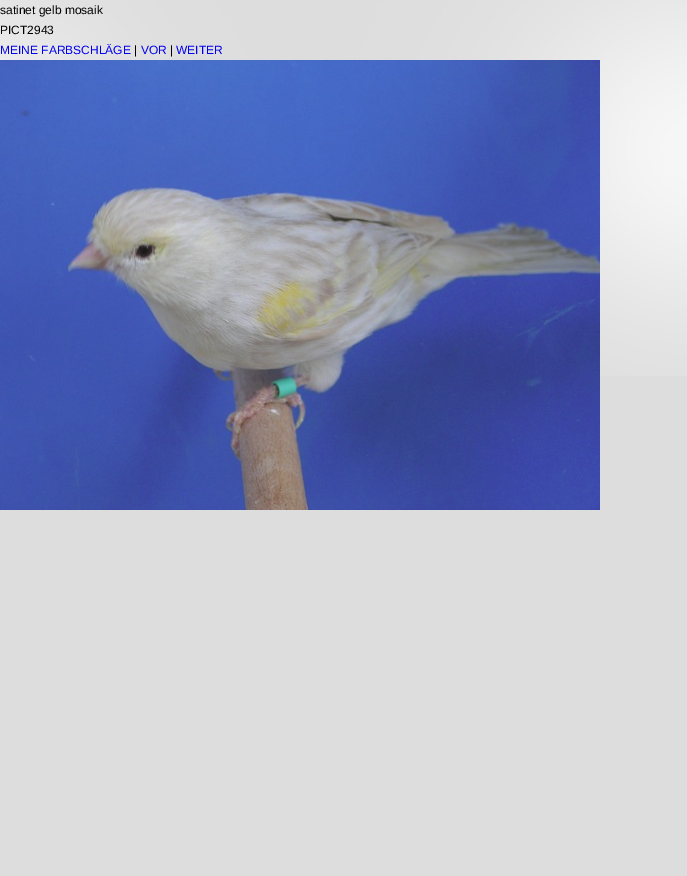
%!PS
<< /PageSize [687 876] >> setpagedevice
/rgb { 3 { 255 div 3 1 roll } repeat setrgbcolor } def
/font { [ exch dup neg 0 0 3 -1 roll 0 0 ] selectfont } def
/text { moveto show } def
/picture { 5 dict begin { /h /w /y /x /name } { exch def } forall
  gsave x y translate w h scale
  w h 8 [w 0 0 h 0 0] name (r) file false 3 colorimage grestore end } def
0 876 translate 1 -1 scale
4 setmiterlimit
221 221 221 rgb
0 0 687 876 rectfill
(img_01.rgb) 0 0 687 376 picture
(img_02.rgb) 0 60 600 450 picture
/LiberationSans-Regular 12 font
0 0 0 rgb
(satinet gelb mosaik) 0 14 text
(PICT2943) 0 34 text
0 0 238 rgb
(MEINE FARBSCHLÄGE) 0 54 text
0 0 0 rgb
(|) 134 54 text
0 0 238 rgb
(VOR) 141 54 text
0 0 0 rgb
(|) 170 54 text
0 0 238 rgb
(WEITER) 176 54 text
showpage
